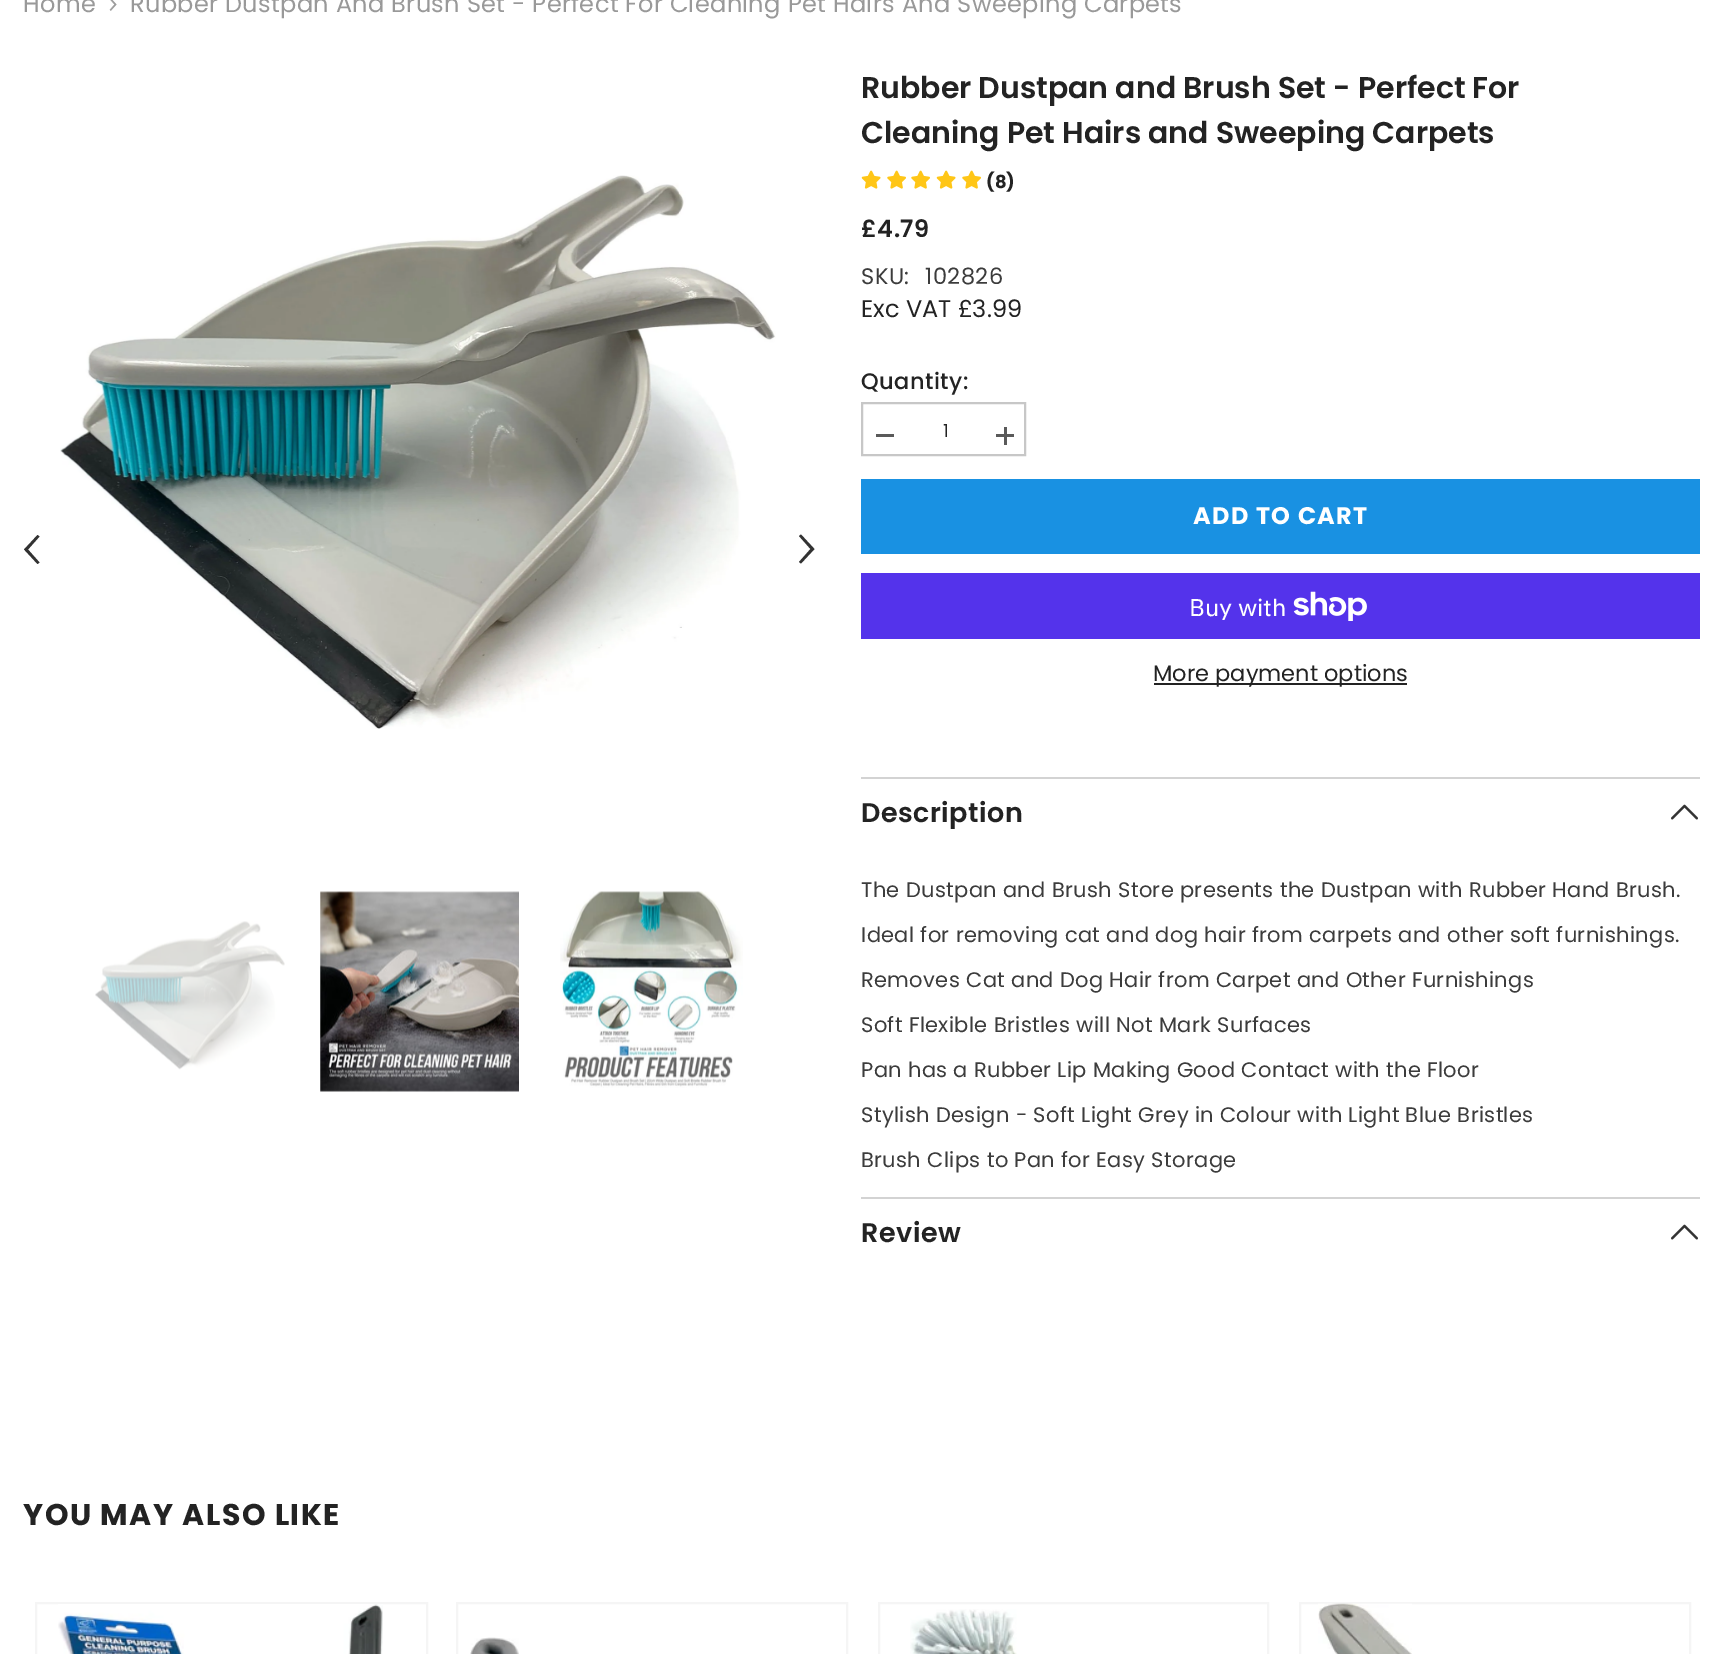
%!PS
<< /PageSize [1722 1654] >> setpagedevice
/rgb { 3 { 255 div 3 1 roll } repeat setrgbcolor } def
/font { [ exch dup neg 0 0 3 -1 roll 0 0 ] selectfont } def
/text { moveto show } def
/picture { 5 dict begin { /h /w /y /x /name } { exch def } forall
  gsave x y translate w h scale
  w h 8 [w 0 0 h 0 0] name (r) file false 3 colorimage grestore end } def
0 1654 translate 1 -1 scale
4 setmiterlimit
255 255 255 rgb
0 0 1722 1654 rectfill
(img_01.rgb) 109 0 8 11 picture
(img_02.rgb) 60 175 716 554 picture
50 50 50 rgb
37.5 564 moveto 2 -1.5 rlineto -11.5 -13 rlineto 11.5 -13 rlineto -2 -1.5 rlineto -13.5 14.5 rlineto 1 1 rlineto closepath fill
801 534.5 moveto -2 1.5 rlineto 11.5 13 rlineto -11.5 13 rlineto 2 1.5 rlineto 13.5 -14.5 rlineto -1 -1 rlineto closepath fill
(img_03.rgb) 95 921 190 149 picture
(img_04.rgb) 320 891 199 201 picture
(img_05.rgb) 560 891 183 197 picture
(img_06.rgb) 861 170 20 19 picture
(img_07.rgb) 887 170 19 19 picture
(img_07.rgb) 911 170 19 19 picture
(img_06.rgb) 936 170 20 19 picture
(img_07.rgb) 962 170 19 19 picture
199 199 199 rgb
2 setlinewidth
862 403 163 52 rectstroke
90 90 90 rgb
876 434 18 3 rectfill
996 434 18 3 rectfill
1004 427 3 18 rectfill
25 145 226 rgb
861 479 839 75 rectfill
84 51 235 rgb
861 573 839 66 rectfill
(img_08.rgb) 1293 591 74 30 picture
35 35 35 rgb
1154 683 253 2 rectfill
211 211 211 rgb
861 777 839 2 rectfill
(img_09.rgb) 1671 804 27 16 picture
861 1197 839 2 rectfill
(img_09.rgb) 1671 1224 27 16 picture
245 245 245 rgb
36 1603 391 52 rectstroke
(img_10.rgb) 58 1604 325 50 picture
457 1603 390 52 rectstroke
(img_11.rgb) 470 1637 49 17 picture
879 1603 389 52 rectstroke
(img_12.rgb) 910 1609 107 45 picture
1300 1603 390 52 rectstroke
(img_13.rgb) 1318 1603 94 51 picture
/Poppins-Regular 24 font
153 153 153 rgb
23 12 moveto 0.35 0 (Home) ashow
130 12 moveto 0.35 0 (Rubber Dustpan And Brush Set - Perfect For Cleaning Pet Hairs And Sweeping Carpets) ashow
/Poppins-SemiBold 30 font
35 35 35 rgb
(Rubber Dustpan and Brush Set - Perfect For) 861 98 text
(Cleaning Pet Hairs and Sweeping Carpets) 861 143 text
/Poppins-Bold 18 font
(\(8\)) 986 188 text
/Poppins-SemiBold 24 font
861 237 moveto 0.5 0 (£4.79) ashow
/Poppins-Regular 22.5 font
60 60 60 rgb
861 284 moveto 0.5 0 (SKU:) ashow
925 284 moveto 0.5 0 (102826) ashow
/Poppins-Regular 24 font
35 35 35 rgb
(Exc VAT £3.99) 861 317 text
/Poppins-Medium 22.5 font
861 389 moveto 0.5 0 (Quantity:) ashow
/Poppins-Regular 18 font
943 437 moveto 0.35 0 (1) ashow
/Poppins-Bold 24 font
255 255 255 rgb
1193 524 moveto 1.25 0 (ADD TO CART) ashow
/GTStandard-Regular 24 font
(Buy with) 1189 616 text
/Poppins-Regular 22.5 font
35 35 35 rgb
(More payment options) 1153 681 text
/Poppins-SemiBold 27 font
861 822 moveto 0.5 0 (Description) ashow
/Poppins-Regular 21 font
60 60 60 rgb
861 897 moveto 0.35 0 (The Dustpan and Brush Store presents the Dustpan with Rubber Hand Brush.) ashow
861 942 moveto 0.35 0 (Ideal for removing cat and dog hair from carpets and other soft furnishings.) ashow
861 987 moveto 0.35 0 (Removes Cat and Dog Hair from Carpet and Other Furnishings) ashow
861 1032 moveto 0.35 0 (Soft Flexible Bristles will Not Mark Surfaces) ashow
861 1077 moveto 0.35 0 (Pan has a Rubber Lip Making Good Contact with the Floor) ashow
861 1122 moveto 0.35 0 (Stylish Design - Soft Light Grey in Colour with Light Blue Bristles) ashow
861 1167 moveto 0.35 0 (Brush Clips to Pan for Easy Storage) ashow
/Poppins-SemiBold 27 font
35 35 35 rgb
861 1242 moveto 0.5 0 (Review) ashow
/Poppins-Bold 30 font
23 1525 moveto 1.5 0 (YOU MAY ALSO LIKE) ashow
showpage
